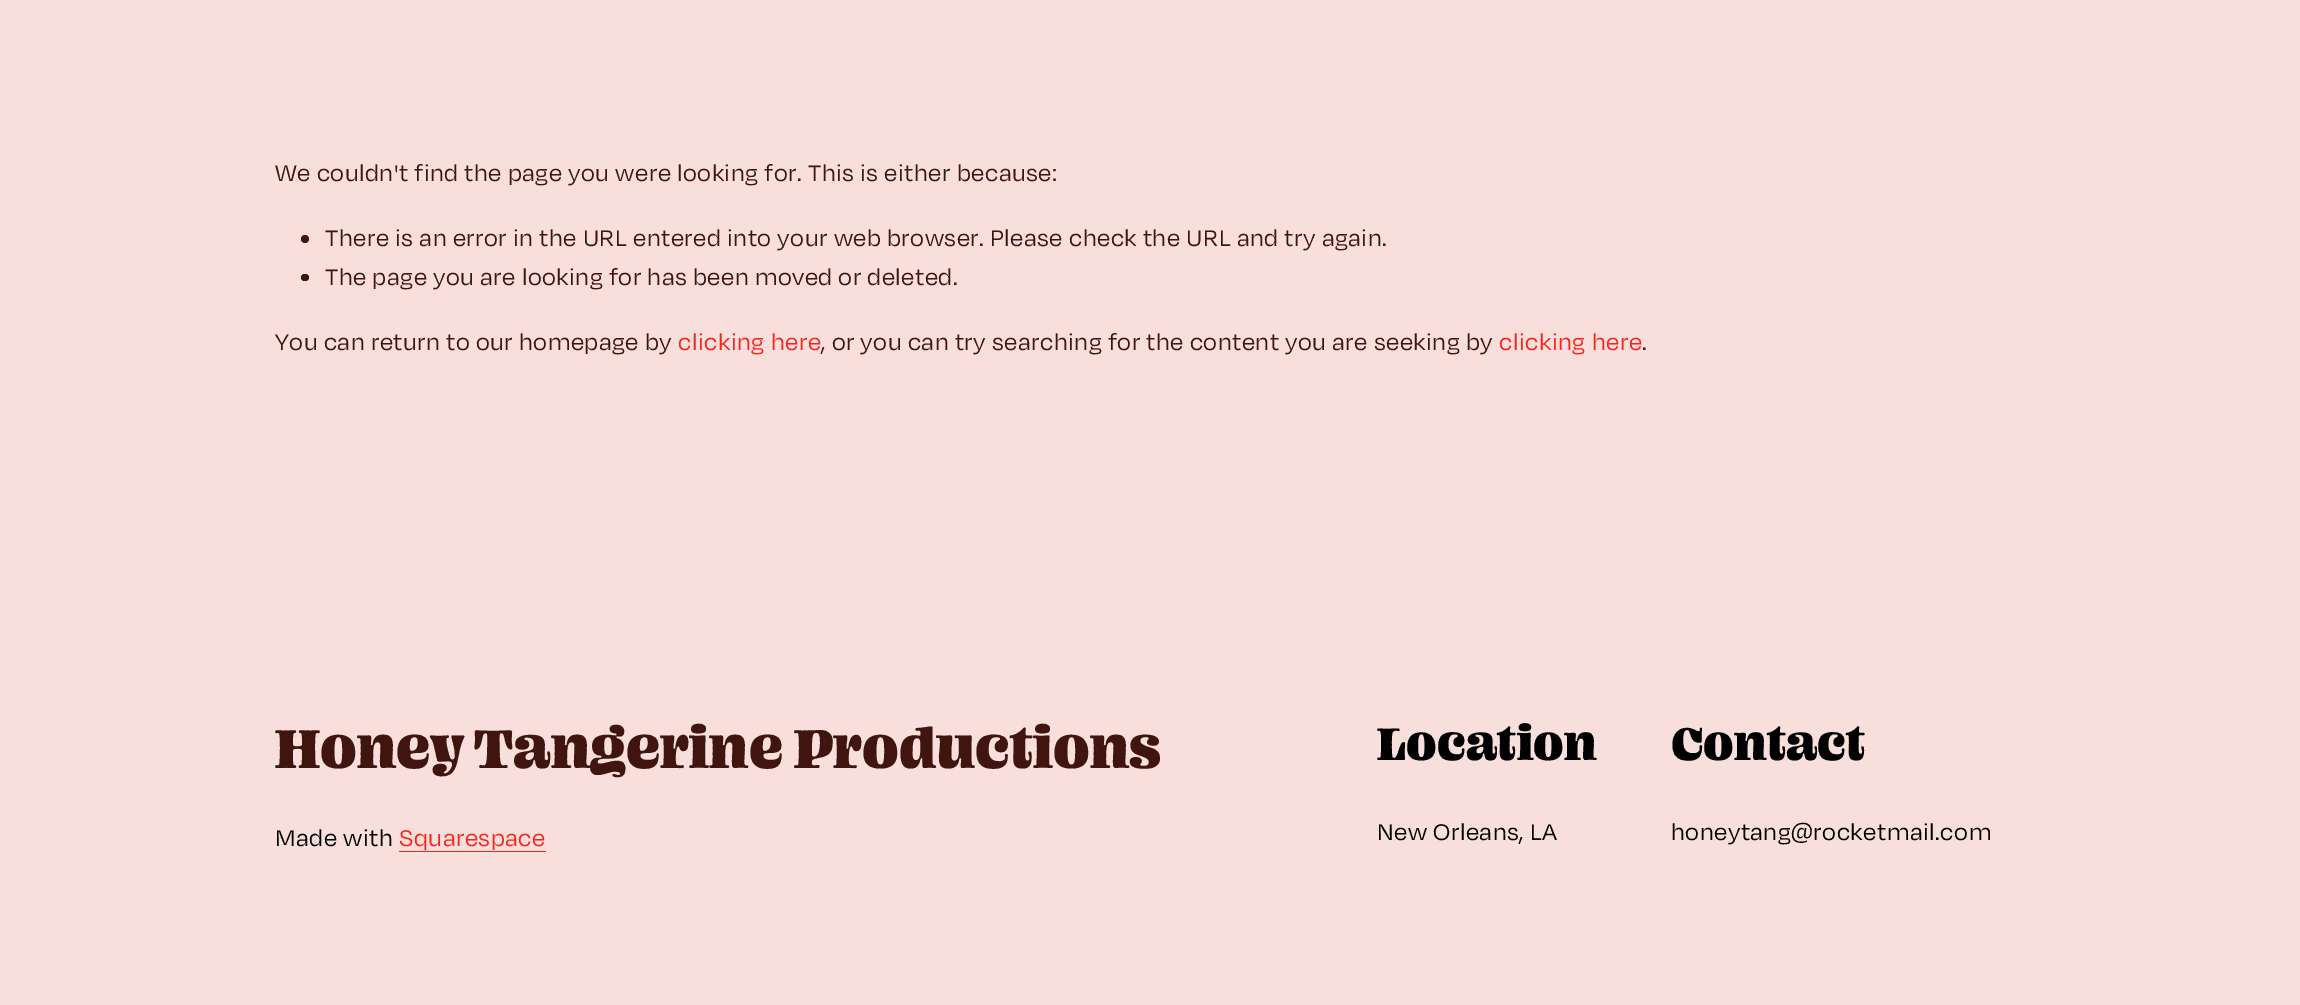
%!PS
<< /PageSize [2300 1005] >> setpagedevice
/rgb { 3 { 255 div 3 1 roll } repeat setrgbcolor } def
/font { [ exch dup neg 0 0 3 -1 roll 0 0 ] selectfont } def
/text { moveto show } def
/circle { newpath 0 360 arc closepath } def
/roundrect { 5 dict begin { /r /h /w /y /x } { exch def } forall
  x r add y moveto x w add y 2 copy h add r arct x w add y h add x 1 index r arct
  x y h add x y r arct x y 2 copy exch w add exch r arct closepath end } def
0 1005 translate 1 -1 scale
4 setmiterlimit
248 223 219 rgb
0 0 2300 1005 rectfill
64 20 15 rgb
305 239 4 circle fill
301 274 8 7 3.5 roundrect fill
252 34 28 rgb
399 851 147 1 rectfill
/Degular-Regular 26 font
64 20 15 rgb
275 181 moveto 0.52 0 (We couldn't find the page you were looking for. This is either because:) ashow
325 246 moveto 0.52 0 (There is an error in the URL entered into your web browser. Please check the URL and try again.) ashow
325 285 moveto 0.52 0 (The page you are looking for has been moved or deleted.) ashow
275 350 moveto 0.52 0 (You can return to our homepage by) ashow
252 34 28 rgb
678 350 moveto 0.52 0 (clicking here) ashow
64 20 15 rgb
821 350 moveto 0.52 0 (, or you can try searching for the content you are seeking by) ashow
252 34 28 rgb
1499 350 moveto 0.52 0 (clicking here) ashow
64 20 15 rgb
1642 350 moveto 0.52 0 (.) ashow
/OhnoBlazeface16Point-Light 60 font
(Honey Tangerine Productions) 275 768 text
/OhnoBlazeface16Point-Light 50 font
0 0 0 rgb
(Location) 1377 760 text
/Degular-Regular 26 font
1377 840 moveto 0.52 0 (New Orleans, LA) ashow
/OhnoBlazeface16Point-Light 50 font
(Contact) 1671 760 text
/Degular-Regular 26 font
1671 840 moveto 0.52 0 (honeytang@rocketmail.com) ashow
275 846 moveto 0.52 0 (Made with) ashow
252 34 28 rgb
399 846 moveto 0.52 0 (Squarespace) ashow
showpage
